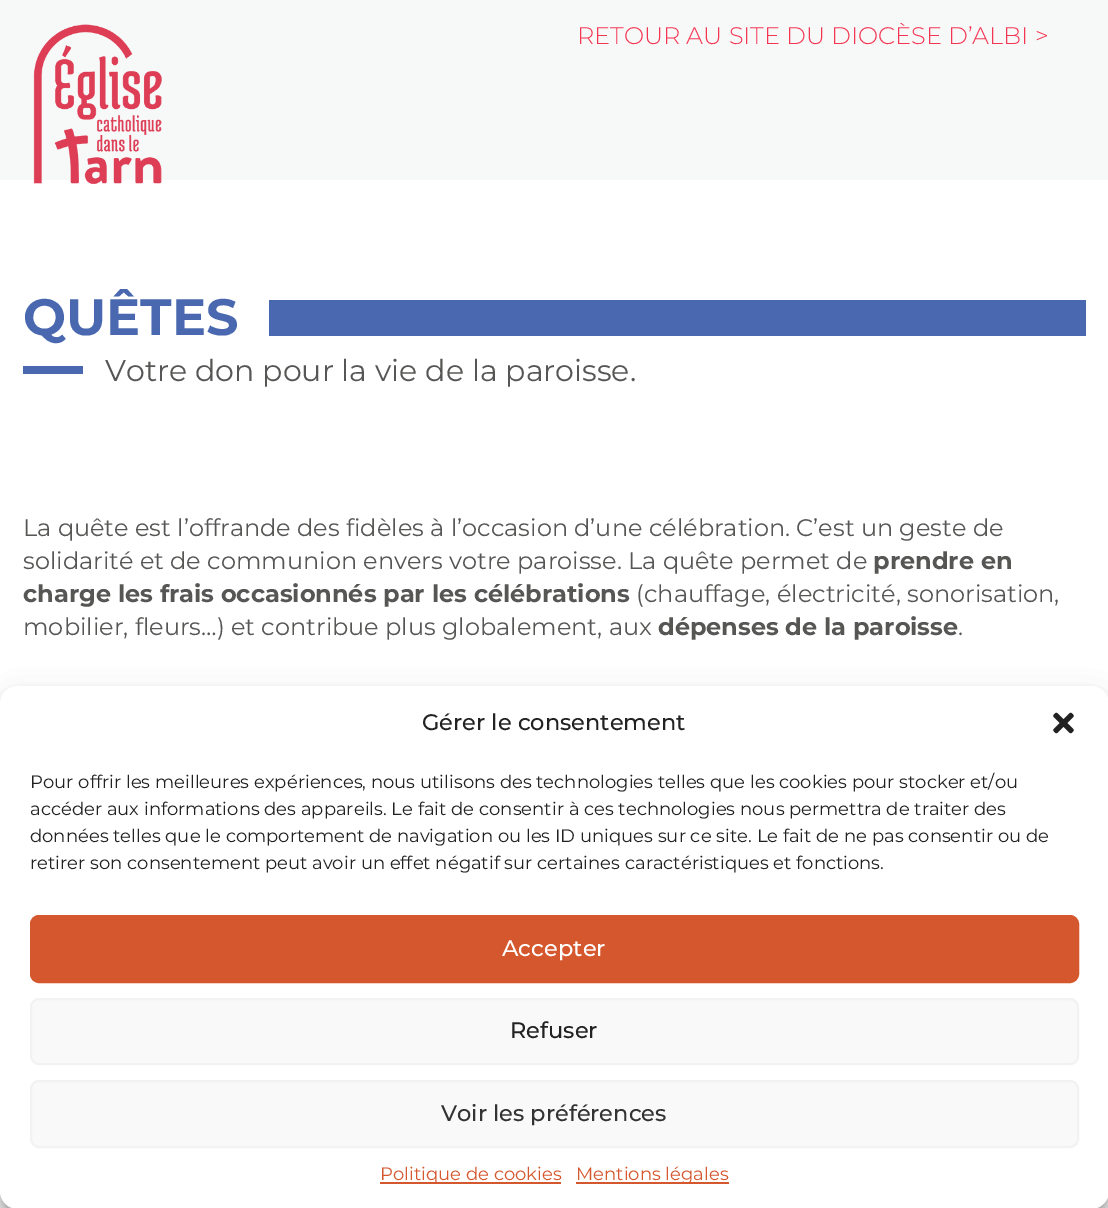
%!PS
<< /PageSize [1108 1208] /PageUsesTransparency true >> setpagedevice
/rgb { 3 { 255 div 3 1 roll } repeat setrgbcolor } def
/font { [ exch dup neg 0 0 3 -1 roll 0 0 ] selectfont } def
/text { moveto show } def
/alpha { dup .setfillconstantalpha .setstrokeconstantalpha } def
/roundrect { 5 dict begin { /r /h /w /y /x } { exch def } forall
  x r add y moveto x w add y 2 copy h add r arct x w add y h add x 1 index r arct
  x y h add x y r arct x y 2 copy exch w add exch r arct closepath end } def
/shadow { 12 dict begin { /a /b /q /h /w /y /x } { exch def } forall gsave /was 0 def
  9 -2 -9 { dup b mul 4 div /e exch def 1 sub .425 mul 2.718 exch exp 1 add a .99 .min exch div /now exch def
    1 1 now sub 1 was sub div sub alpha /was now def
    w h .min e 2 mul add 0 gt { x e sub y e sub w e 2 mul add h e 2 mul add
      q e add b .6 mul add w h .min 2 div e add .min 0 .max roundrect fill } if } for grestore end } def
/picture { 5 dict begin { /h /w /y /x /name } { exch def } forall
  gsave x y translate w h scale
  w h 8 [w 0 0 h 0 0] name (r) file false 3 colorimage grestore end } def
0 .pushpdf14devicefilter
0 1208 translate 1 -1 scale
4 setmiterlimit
255 255 255 rgb
0 0 1108 1208 rectfill
247 248 248 rgb
0 0 1108 180 rectfill
(img_01.rgb) 33 24 129 160 picture
73 104 176 rgb
269 300 817 36 rectfill
23 366 60 8 rectfill
0 0 0 rgb
0 695 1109 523 18 4.5 0.23 shadow
0 701 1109 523 18 15 0.19 shadow
255 255 255 rgb
0 686 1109 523 18 roundrect fill
(img_02.rgb) 1053 712 21 22 picture
212 87 45 rgb
31 916 1047 66 8 roundrect gsave fill grestore
2 setlinewidth
stroke
249 249 249 rgb
31 999 1047 65 8 roundrect gsave fill grestore
242 242 242 rgb
stroke
249 249 249 rgb
31 1081 1047 66 8 roundrect gsave fill grestore
242 242 242 rgb
stroke
212 87 45 rgb
380 1182 181 2 rectfill
576 1182 153 2 rectfill
/Montserrat-Light 24 font
244 54 83 rgb
(RETOUR AU SITE DU DIOCÈSE D’ALBI >) 577 44 text
/Montserrat-Bold 51 font
73 104 176 rgb
(QUÊTES) 23 335 text
/Montserrat-Regular 30 font
86 86 85 rgb
(Votre don pour la vie de la paroisse.) 105 381 text
/Montserrat-Regular 24 font
(La quête est l’offrande des fidèles à l’occasion d’une célébration. C’est un geste de) 23 536 text
(solidarité et de communion envers votre paroisse. La quête permet de) 23 569 text
/Montserrat-Bold 24 font
(prendre en) 873 569 text
(charge les frais occasionnés par les célébrations) 23 602 text
/Montserrat-Regular 24 font
(\(chauffage, électricité, sonorisation,) 636 602 text
(mobilier, fleurs…\) et contribue plus globalement, aux) 23 635 text
/Montserrat-Bold 24 font
(dépenses de la paroisse) 658 635 text
/Montserrat-Regular 24 font
(.) 958 635 text
/Montserrat-Medium 22.5 font
34 34 34 rgb
(Gérer le consentement) 422 730 text
/Montserrat-Regular 18 font
(Pour offrir les meilleures expériences, nous utilisons des technologies telles que les cookies pour stocker et/ou) 30 788 text
(accéder aux informations des appareils. Le fait de consentir à ces technologies nous permettra de traiter des) 30 815 text
(données telles que le comportement de navigation ou les ID uniques sur ce site. Le fait de ne pas consentir ou de) 30 842 text
(retirer son consentement peut avoir un effet négatif sur certaines caractéristiques et fonctions.) 30 869 text
/Montserrat-Medium 22.5 font
255 255 255 rgb
(Accepter) 502 956 text
34 34 34 rgb
(Refuser) 510 1038 text
51 51 51 rgb
(Voir les préférences) 441 1121 text
/Montserrat-Regular 18 font
212 87 45 rgb
(Politique de cookies) 380 1180 text
(Mentions légales) 576 1180 text
.poppdf14devicefilter showpage
